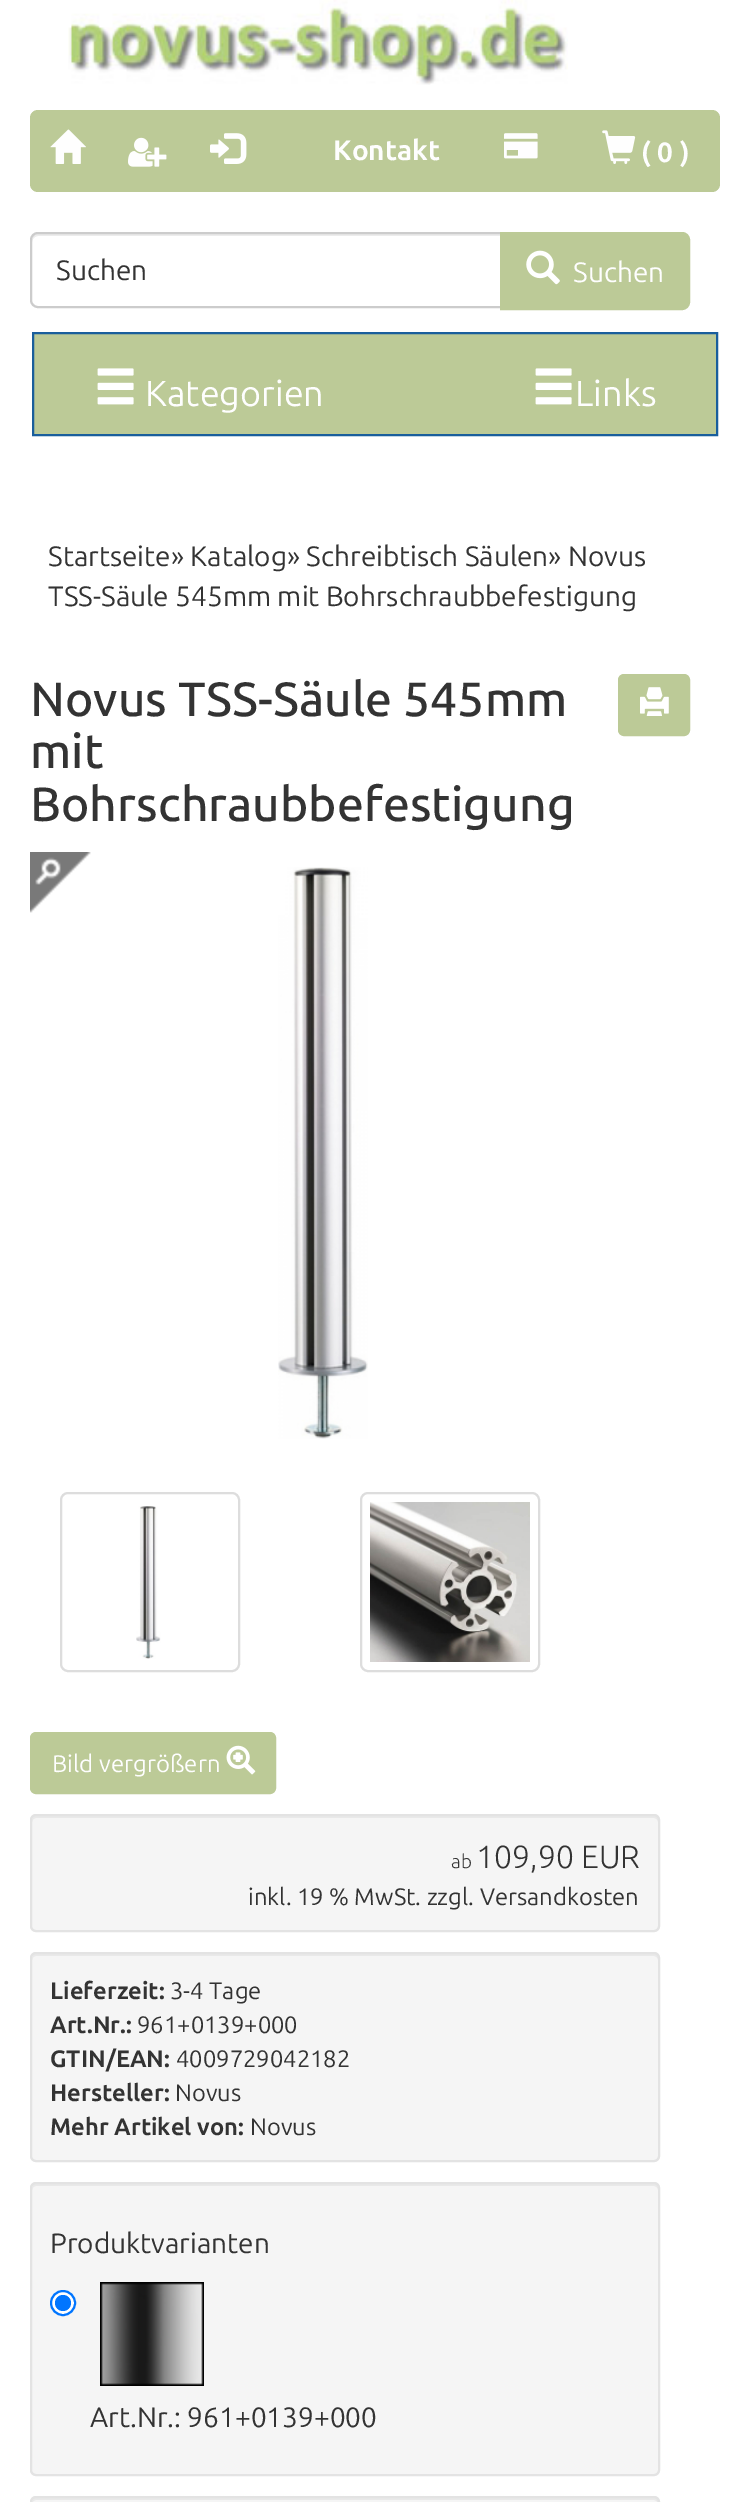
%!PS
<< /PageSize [750 2502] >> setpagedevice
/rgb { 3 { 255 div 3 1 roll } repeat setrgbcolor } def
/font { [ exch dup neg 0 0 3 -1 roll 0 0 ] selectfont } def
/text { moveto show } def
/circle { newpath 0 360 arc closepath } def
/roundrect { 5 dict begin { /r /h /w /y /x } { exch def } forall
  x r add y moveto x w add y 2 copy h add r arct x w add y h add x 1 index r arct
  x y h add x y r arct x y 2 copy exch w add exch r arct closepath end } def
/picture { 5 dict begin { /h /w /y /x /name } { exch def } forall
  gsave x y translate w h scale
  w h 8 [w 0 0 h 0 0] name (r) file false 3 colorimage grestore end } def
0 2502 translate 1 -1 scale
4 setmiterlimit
255 255 255 rgb
0 0 750 2502 rectfill
(img_01.rgb) 68 0 500 85 picture
188 202 151 rgb
30 110 690 82 12 roundrect fill
30 110 74 82 8 roundrect fill
(img_02.rgb) 50 129 36 35 picture
(img_03.rgb) 128 137 39 30 picture
(img_04.rgb) 210 133 37 31 picture
(img_05.rgb) 504 133 34 26 picture
572 110 148 82 8 roundrect fill
(img_06.rgb) 602 130 34 34 picture
236 236 236 rgb
38 236 moveto 462 0 rlineto 0 -2 rlineto -462 0 rlineto -5 0 -6 4 -6 8 rcurveto 0 -3 3 -6 6 -6 rcurveto closepath fill
204 204 204 rgb
2 setlinewidth
38 233 moveto 463 0 rlineto 0 74 rlineto -463 0 rlineto -4 0 -7 -3 -7 -7 rcurveto 0 -60 rlineto 0 -4 3 -7 7 -7 rcurveto closepath stroke
188 202 151 rgb
501 233 moveto 181 0 rlineto 4 0 7 3 7 7 rcurveto 0 62 rlineto 0 4 -3 7 -7 7 rcurveto -181 0 rlineto closepath gsave fill grestore
stroke
(img_07.rgb) 526 250 34 35 picture
33 333 moveto 684 0 rlineto 0 102 rlineto -684 0 rlineto closepath gsave fill grestore
25 94 156 rgb
stroke
(img_08.rgb) 97 368 37 37 picture
(img_08.rgb) 535 368 37 37 picture
188 202 151 rgb
619 675 70 60 5 roundrect gsave fill grestore
stroke
(img_09.rgb) 640 687 29 29 picture
(img_10.rgb) 30 852 61 61 picture
(img_11.rgb) 278 867 90 572 picture
221 221 221 rgb
61 1493 178 178 7 roundrect stroke
(img_12.rgb) 136 1506 25 153 picture
361 1493 178 178 7 roundrect stroke
(img_13.rgb) 370 1502 160 160 picture
188 202 151 rgb
31 1733 244 60 5 roundrect gsave fill grestore
stroke
(img_14.rgb) 226 1745 30 30 picture
245 245 245 rgb
30 1814 630 118 6 roundrect fill
233 233 233 rgb
36 1818 moveto 618 0 rlineto 2 0 4 2 4 4 rcurveto 0 -3 0 -6 -4 -6 rcurveto -620 0 rlineto -1 2 rlineto -1 1 -1 3 -1 4 rcurveto 0 -2 2 -4 4 -4 rcurveto closepath fill
227 227 227 rgb
31 1815 628 116 5 roundrect stroke
245 245 245 rgb
30 1952 630 210 6 roundrect fill
233 233 233 rgb
36 1956 moveto 618 0 rlineto 2 0 4 2 4 4 rcurveto 0 -3 0 -6 -4 -6 rcurveto -620 0 rlineto -1 2 rlineto -1 1 -1 3 -1 4 rcurveto 0 -2 2 -4 4 -4 rcurveto closepath fill
227 227 227 rgb
31 1953 628 208 5 roundrect stroke
245 245 245 rgb
30 2182 630 294 6 roundrect fill
233 233 233 rgb
36 2186 moveto 618 0 rlineto 2 0 4 2 4 4 rcurveto 0 -3 0 -6 -4 -6 rcurveto -620 0 rlineto -1 2 rlineto -1 1 -1 3 -1 4 rcurveto 0 -2 2 -4 4 -4 rcurveto closepath fill
227 227 227 rgb
31 2183 628 292 5 roundrect stroke
255 255 255 rgb
63 2303 12 circle gsave fill grestore
0 117 255 rgb
stroke
63 2303 8 circle fill
(img_15.rgb) 100 2282 104 104 picture
245 245 245 rgb
30 2496 630 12 6 roundrect fill
233 233 233 rgb
36 2500 moveto 618 0 rlineto 2 0 4 2 4 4 rcurveto 0 -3 0 -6 -4 -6 rcurveto -620 0 rlineto -1 2 rlineto -1 1 -1 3 -1 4 rcurveto 0 -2 2 -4 4 -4 rcurveto closepath fill
227 227 227 rgb
31 2497 628 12 5 roundrect stroke
/Ubuntu-Bold 28 font
254 254 254 rgb
(Kontakt) 333 160 text
(\( 0 \)) 641 162 text
/Ubuntu-Regular 28 font
51 51 51 rgb
(Suchen) 56 280 text
254 254 254 rgb
(Suchen) 573 282 text
/Ubuntu-Regular 36 font
(Kategorien) 145 406 text
(Links) 575 406 text
/Ubuntu-Regular 28 font
51 51 51 rgb
(Startseite» Katalog» Schreibtisch Säulen» Novus) 48 566 text
(TSS-Säule 545mm mit Bohrschraubbefestigung) 48 606 text
/Ubuntu-Medium 48 font
(Novus TSS-Säule 545mm) 30 716 text
(mit) 30 768 text
(Bohrschraubbefestigung) 30 821 text
/Ubuntu-Regular 24 font
254 254 254 rgb
(Bild vergrößern) 52 1772 text
/Ubuntu-Light 19 font
51 51 51 rgb
(ab) 451 1868 text
/Ubuntu-Light 32 font
(109,90 EUR) 476 1868 text
/Ubuntu-Regular 23.75 font
(inkl. 19 % MwSt. zzgl. Versandkosten) 248 1905 text
/Ubuntu-Bold 23.75 font
(Lieferzeit:) 50 1999 text
/Ubuntu-Regular 23.75 font
(3-4 Tage) 170 1999 text
/Ubuntu-Bold 23.75 font
(Art.Nr.:) 50 2033 text
/Ubuntu-Regular 23.75 font
(961+0139+000) 137 2033 text
/Ubuntu-Bold 23.75 font
(GTIN/EAN:) 50 2067 text
/Ubuntu-Regular 23.75 font
(4009729042182) 176 2067 text
/Ubuntu-Bold 23.75 font
(Hersteller:) 50 2101 text
/Ubuntu-Regular 23.75 font
(Novus) 175 2101 text
/Ubuntu-Bold 23.75 font
(Mehr Artikel von:) 50 2135 text
/Ubuntu-Regular 23.75 font
(Novus) 250 2135 text
/Ubuntu-Regular 28 font
(Produktvarianten) 50 2253 text
(Art.Nr.: 961+0139+000) 90 2427 text
showpage
